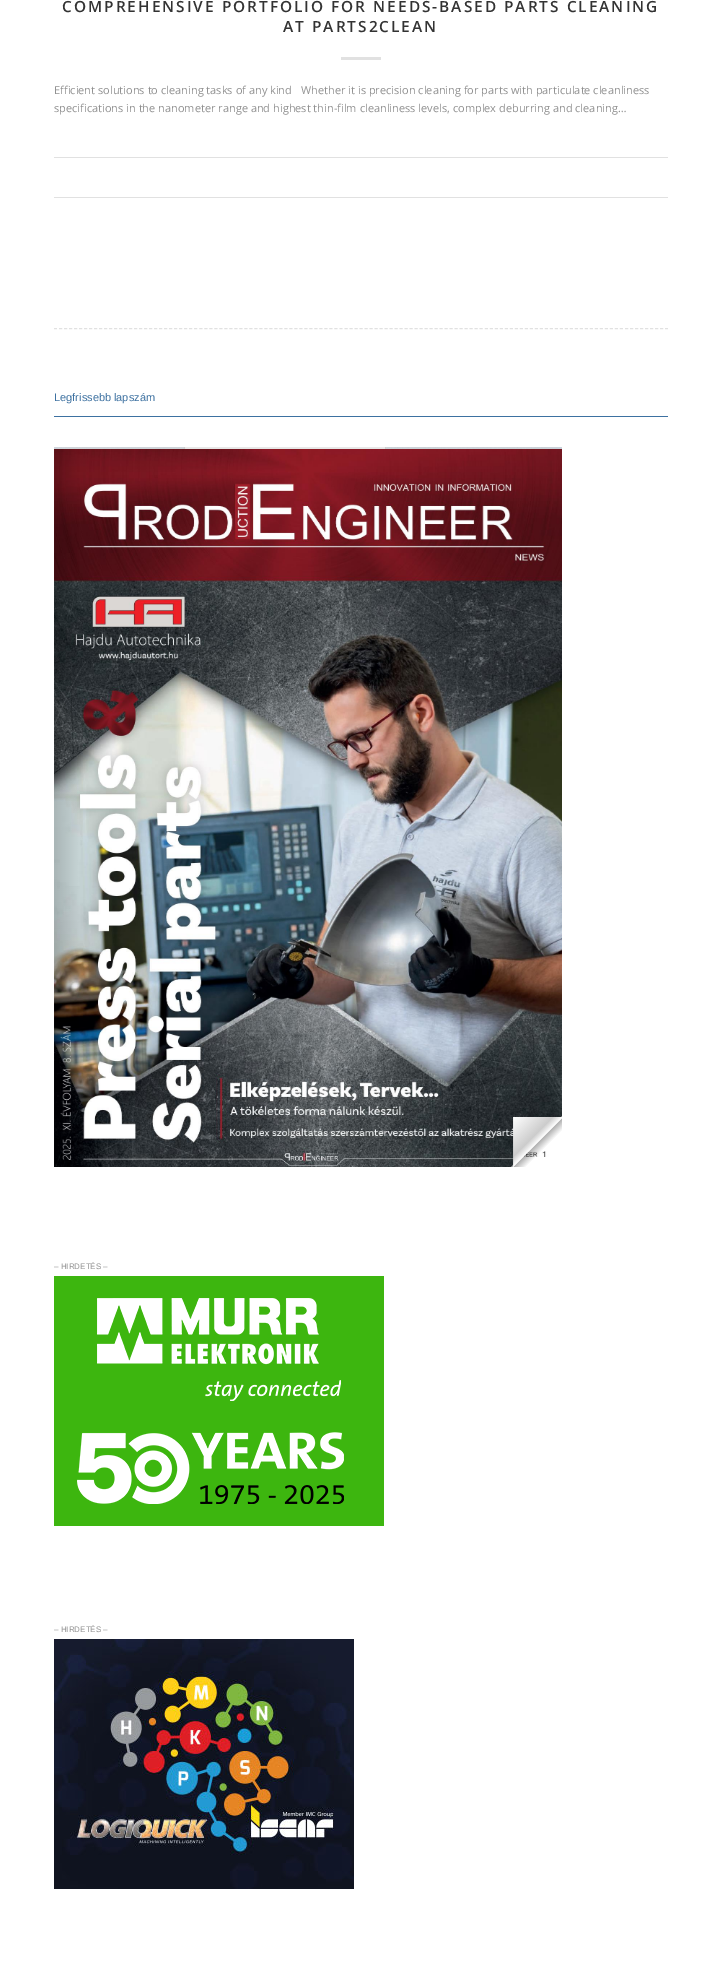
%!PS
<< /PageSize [722 1975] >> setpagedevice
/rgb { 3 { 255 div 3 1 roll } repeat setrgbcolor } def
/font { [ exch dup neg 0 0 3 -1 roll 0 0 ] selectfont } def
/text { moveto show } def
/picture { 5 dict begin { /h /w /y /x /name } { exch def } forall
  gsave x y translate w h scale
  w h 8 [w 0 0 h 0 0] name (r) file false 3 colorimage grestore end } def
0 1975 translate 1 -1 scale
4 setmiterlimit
255 255 255 rgb
0 0 722 1975 rectfill
225 225 225 rgb
341 57 40 3 rectfill
54 157 614 1 rectfill
54 197 614 1 rectfill
[3 2.01] 0 setdash
54 328.5 moveto 614 0 rlineto stroke
61 113 161 rgb
54 416 614 1 rectfill
(img_01.rgb) 54 447 508 720 picture
(img_02.rgb) 54 1276 330 250 picture
(img_03.rgb) 54 1639 300 250 picture
/OpenSans-SemiBold 15.4 font
51 51 51 rgb
62 12 moveto 2 0 (COMPREHENSIVE PORTFOLIO FOR NEEDS-BASED PARTS CLEANING) ashow
283 32 moveto 2 0 (AT PARTS2CLEAN) ashow
/OpenSans-Regular 11 font
145 145 145 rgb
(Efficient solutions to cleaning tasks of any kind) 54 94 text
(Whether it is precision cleaning for parts with particulate cleanliness) 301 94 text
(specifications in the nanometer range and highest thin-film cleanliness levels, complex deburring and cleaning…) 54 112 text
/LiberationSans-Regular 11 font
61 113 161 rgb
(Legfrissebb lapszám) 54 401 text
/LiberationSans-Regular 8 font
145 145 145 rgb
(– HIRDETÉS –) 54 1269 text
(– HIRDETÉS –) 54 1632 text
showpage
